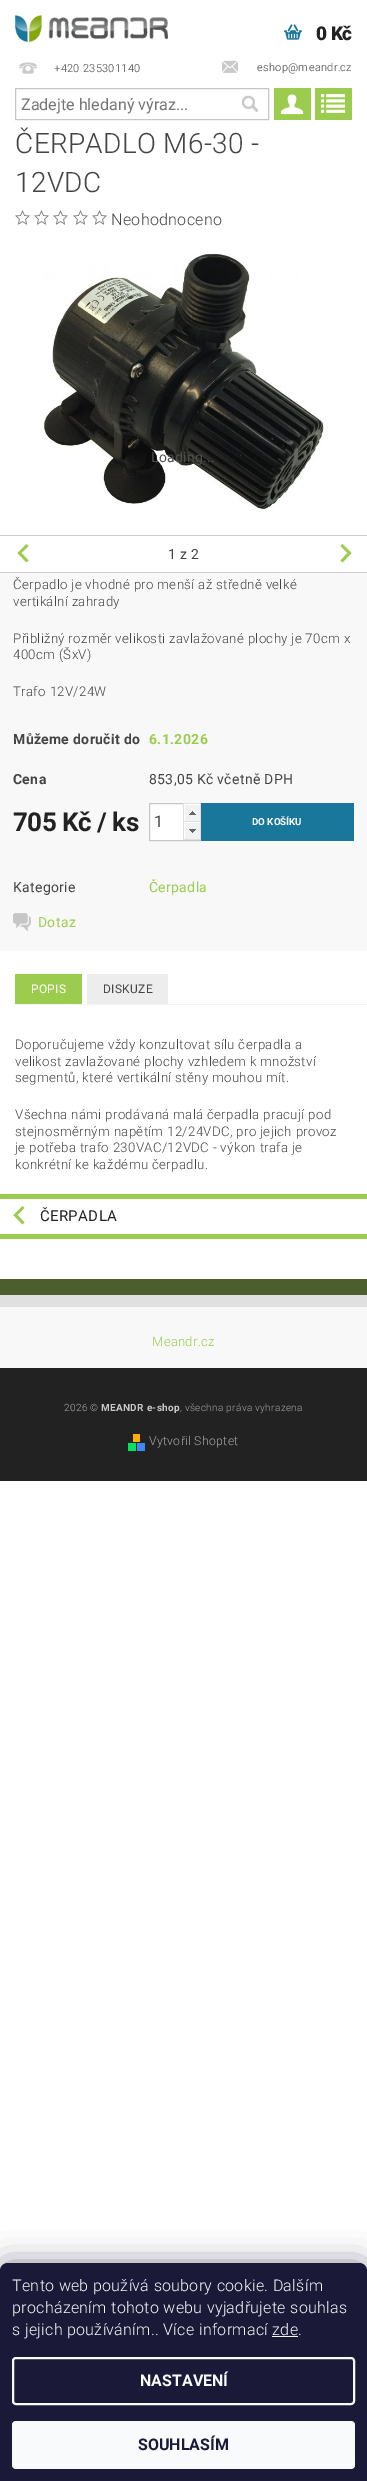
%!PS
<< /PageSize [367 2481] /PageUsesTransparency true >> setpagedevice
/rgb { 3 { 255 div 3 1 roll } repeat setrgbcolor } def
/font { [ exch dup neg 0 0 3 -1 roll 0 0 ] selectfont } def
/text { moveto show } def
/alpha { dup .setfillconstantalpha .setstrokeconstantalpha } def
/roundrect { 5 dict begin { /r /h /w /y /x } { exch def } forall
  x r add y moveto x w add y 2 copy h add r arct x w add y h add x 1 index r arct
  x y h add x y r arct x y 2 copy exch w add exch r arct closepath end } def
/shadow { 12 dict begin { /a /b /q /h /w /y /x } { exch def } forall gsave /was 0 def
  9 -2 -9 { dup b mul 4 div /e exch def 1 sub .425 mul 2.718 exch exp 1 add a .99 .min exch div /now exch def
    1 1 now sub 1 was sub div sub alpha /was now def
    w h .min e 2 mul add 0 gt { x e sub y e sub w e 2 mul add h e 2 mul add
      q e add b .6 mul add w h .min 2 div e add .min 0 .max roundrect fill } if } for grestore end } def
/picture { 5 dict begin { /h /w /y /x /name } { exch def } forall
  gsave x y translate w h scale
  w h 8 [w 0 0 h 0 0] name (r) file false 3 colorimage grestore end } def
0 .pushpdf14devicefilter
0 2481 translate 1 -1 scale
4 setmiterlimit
255 255 255 rgb
0 0 367 2481 rectfill
75 94 44 rgb
0 1279 367 16 rectfill
(img_01.rgb) 15 15 153 27 picture
(img_02.rgb) 284 24 18 16 picture
156 204 78 rgb
274 88 37 32 rectfill
(img_03.rgb) 281 94 22 21 picture
(img_04.rgb) 19 62 18 12 picture
(img_05.rgb) 222 60 16 13 picture
198 198 198 rgb
15.5 88.5 253 31 rectstroke
(img_06.rgb) 242 95 16 17 picture
156 204 78 rgb
315 88 37 32 rectfill
(img_07.rgb) 321 94 24 19 picture
(img_08.rgb) 15 210 15 15 picture
(img_08.rgb) 34 210 15 15 picture
(img_08.rgb) 53 210 15 15 picture
(img_08.rgb) 73 210 15 15 picture
(img_08.rgb) 92 210 15 15 picture
(img_09.rgb) 43 253 282 260 picture
203 203 203 rgb
0 535 367 1 rectfill
0 572 367 1 rectfill
156 204 78 rgb
26.5 544 moveto -9 9 rlineto 9 9.5 rlineto 2 -2 rlineto -7 -7.5 rlineto 7 -7 rlineto closepath fill
342.5 544 moveto 9 9 rlineto -9 9.5 rlineto -2 -2 rlineto 7 -7.5 rlineto -7 -7 rlineto closepath fill
248 248 248 rgb
0 573 367 378 rectfill
255 255 255 rgb
149.5 803.5 moveto 51 0 rlineto 0 37 rlineto -51 0 rlineto closepath gsave fill grestore
198 198 198 rgb
stroke
(img_10.rgb) 183 803 18 18 picture
(img_11.rgb) 183 821 18 19 picture
25 119 155 rgb
201 803 153 38 rectfill
(img_12.rgb) 13 913 18 19 picture
242 242 242 rgb
15 1004 352 1 rectfill
156 204 78 rgb
15 974 67 30 rectfill
237 237 237 rgb
87 974 81 30 rectfill
156 204 78 rgb
0 1194 367 5 rectfill
0 1234 367 5 rectfill
22.5 1206 moveto -9 9 rlineto 9 9.5 rlineto 2 -2 rlineto -7 -7.5 rlineto 7 -7 rlineto closepath fill
248 248 248 rgb
0 1307 367 61 rectfill
224 224 224 rgb
0 1295 367 12 rectfill
34 34 34 rgb
0 1368 367 113 rectfill
252 175 0 rgb
133 1434 7 8 rectfill
0 226 90 rgb
128 1443 8 8 rectfill
59 136 255 rgb
137 1443 8 8 rectfill
27 25 57 rgb
0 2263 367 218 8 15 0.5 shadow
26 25 55 rgb
8 2263 moveto 351 0 rlineto 4.5 0 8 3.5 8 8 rcurveto 0 210 rlineto -367 0 rlineto 0 -210 rlineto 0 -4.5 3.5 -8 8 -8 rcurveto closepath fill
248 250 251 rgb
272 2336 26 1 rectfill
2 setlinewidth
13 2358 341 46 3 roundrect stroke
12 2421 343 48 4 roundrect fill
/Roboto-Black 19 font
34 34 34 rgb
316 40 moveto -0.5 0 (0 Kč) ashow
/Roboto-Light 11 font
68 68 68 rgb
54 72 moveto 0.32 0 (+420 235301140) ashow
257 71 moveto 0.32 0 (eshop@meandr.cz) ashow
/Roboto-Regular 16.1 font
117 117 117 rgb
(Zadejte hledaný výraz...) 21 110 text
/Roboto-Light 28 font
68 68 68 rgb
15 153 moveto 0.32 0 (ČERPADLO M6-30 -) ashow
15 192 moveto 0.32 0 (12VDC) ashow
/Roboto-Light 16 font
111 225 moveto 0.32 0 (Neohodnoceno) ashow
/Roboto-Regular 14 font
77 77 76 rgb
151 462 moveto 0.32 0 (Loading...) ashow
68 68 68 rgb
168 559 moveto 0.32 0 (1 z 2) ashow
/Roboto-Light 13.3 font
13 589 moveto 0.32 0 (Čerpadlo je vhodné pro menší až středně velké) ashow
13 606 moveto 0.32 0 (vertikální zahrady) ashow
13 643 moveto 0.32 0 (Přibližný rozměr velikosti zavlažované plochy je 70cm x) ashow
13 659 moveto 0.32 0 (400cm \(ŠxV\)) ashow
13 696 moveto 0.32 0 (Trafo 12V/24W) ashow
/Roboto-Bold 14 font
13 744 moveto 0.32 0 (Můžeme doručit do) ashow
156 204 78 rgb
149 744 moveto 0.32 0 (6.1.2026) ashow
68 68 68 rgb
13 784 moveto 0.32 0 (Cena) ashow
/Roboto-Regular 14 font
149 784 moveto 0.32 0 (853,05 Kč včetně DPH) ashow
/Roboto-Bold 26 font
34 34 34 rgb
13 831 moveto -0.5 0 (705 Kč / ks) ashow
/Roboto-Regular 16.1 font
68 68 68 rgb
(1) 154 827 text
/Roboto-Bold 9.75 font
255 255 255 rgb
(DO KOŠÍKU) 252 825 text
/Roboto-Regular 14 font
68 68 68 rgb
13 892 moveto 0.32 0 (Kategorie) ashow
156 204 78 rgb
149 892 moveto 0.32 0 (Čerpadla) ashow
38 927 moveto 0.32 0 (Dotaz) ashow
/Roboto-Regular 12 font
255 255 255 rgb
31 993 moveto 0.32 0 (POPIS) ashow
68 68 68 rgb
103 993 moveto 0.32 0 (DISKUZE) ashow
/Roboto-Light 13.3 font
15 1049 moveto 0.32 0 (Doporučujeme vždy konzultovat sílu čerpadla a) ashow
15 1066 moveto 0.32 0 (velikost zavlažované plochy vzhledem k množství) ashow
15 1082 moveto 0.32 0 (segmentů, které vertikální stěny mouhou mít.) ashow
15 1119 moveto 0.32 0 (Všechna námi prodávaná malá čerpadla pracují pod) ashow
15 1136 moveto 0.32 0 (stejnosměrným napětím 12/24VDC, pro jejich provoz) ashow
15 1152 moveto 0.32 0 (je potřeba trafo 230VAC/12VDC - výkon trafa je) ashow
15 1169 moveto 0.32 0 (konkrétní ke každému čerpadlu.) ashow
/Roboto-Regular 15 font
34 34 34 rgb
40 1221 moveto 0.32 0 (ČERPADLA) ashow
/Roboto-Light 13 font
156 204 78 rgb
152 1346 moveto 0.32 0 (Meandr.cz) ashow
/Roboto-Light 10 font
166 166 166 rgb
64 1411 moveto 0.32 0 (2026 ©) ashow
/Roboto-Bold 10 font
201 201 201 rgb
101 1411 moveto 0.32 0 (MEANDR e-shop) ashow
/Roboto-Light 10 font
166 166 166 rgb
180 1411 moveto 0.32 0 (, všechna práva vyhrazena) ashow
/Roboto-Light 12.25 font
149 1445 moveto 0.32 0 (Vytvořil Shoptet) ashow
/Roboto-Light 16 font
248 250 251 rgb
12 2291 moveto 0.32 0 (Tento web používá soubory cookie. Dalším) ashow
12 2313 moveto 0.32 0 (procházením tohoto webu vyjadřujete souhlas) ashow
12 2335 moveto 0.32 0 (s jejich používáním.. Více informací zde.) ashow
/Roboto-Bold 16 font
(NASTAVENÍ) 140 2386 text
26 25 55 rgb
(SOUHLASÍM) 138 2450 text
.poppdf14devicefilter showpage
